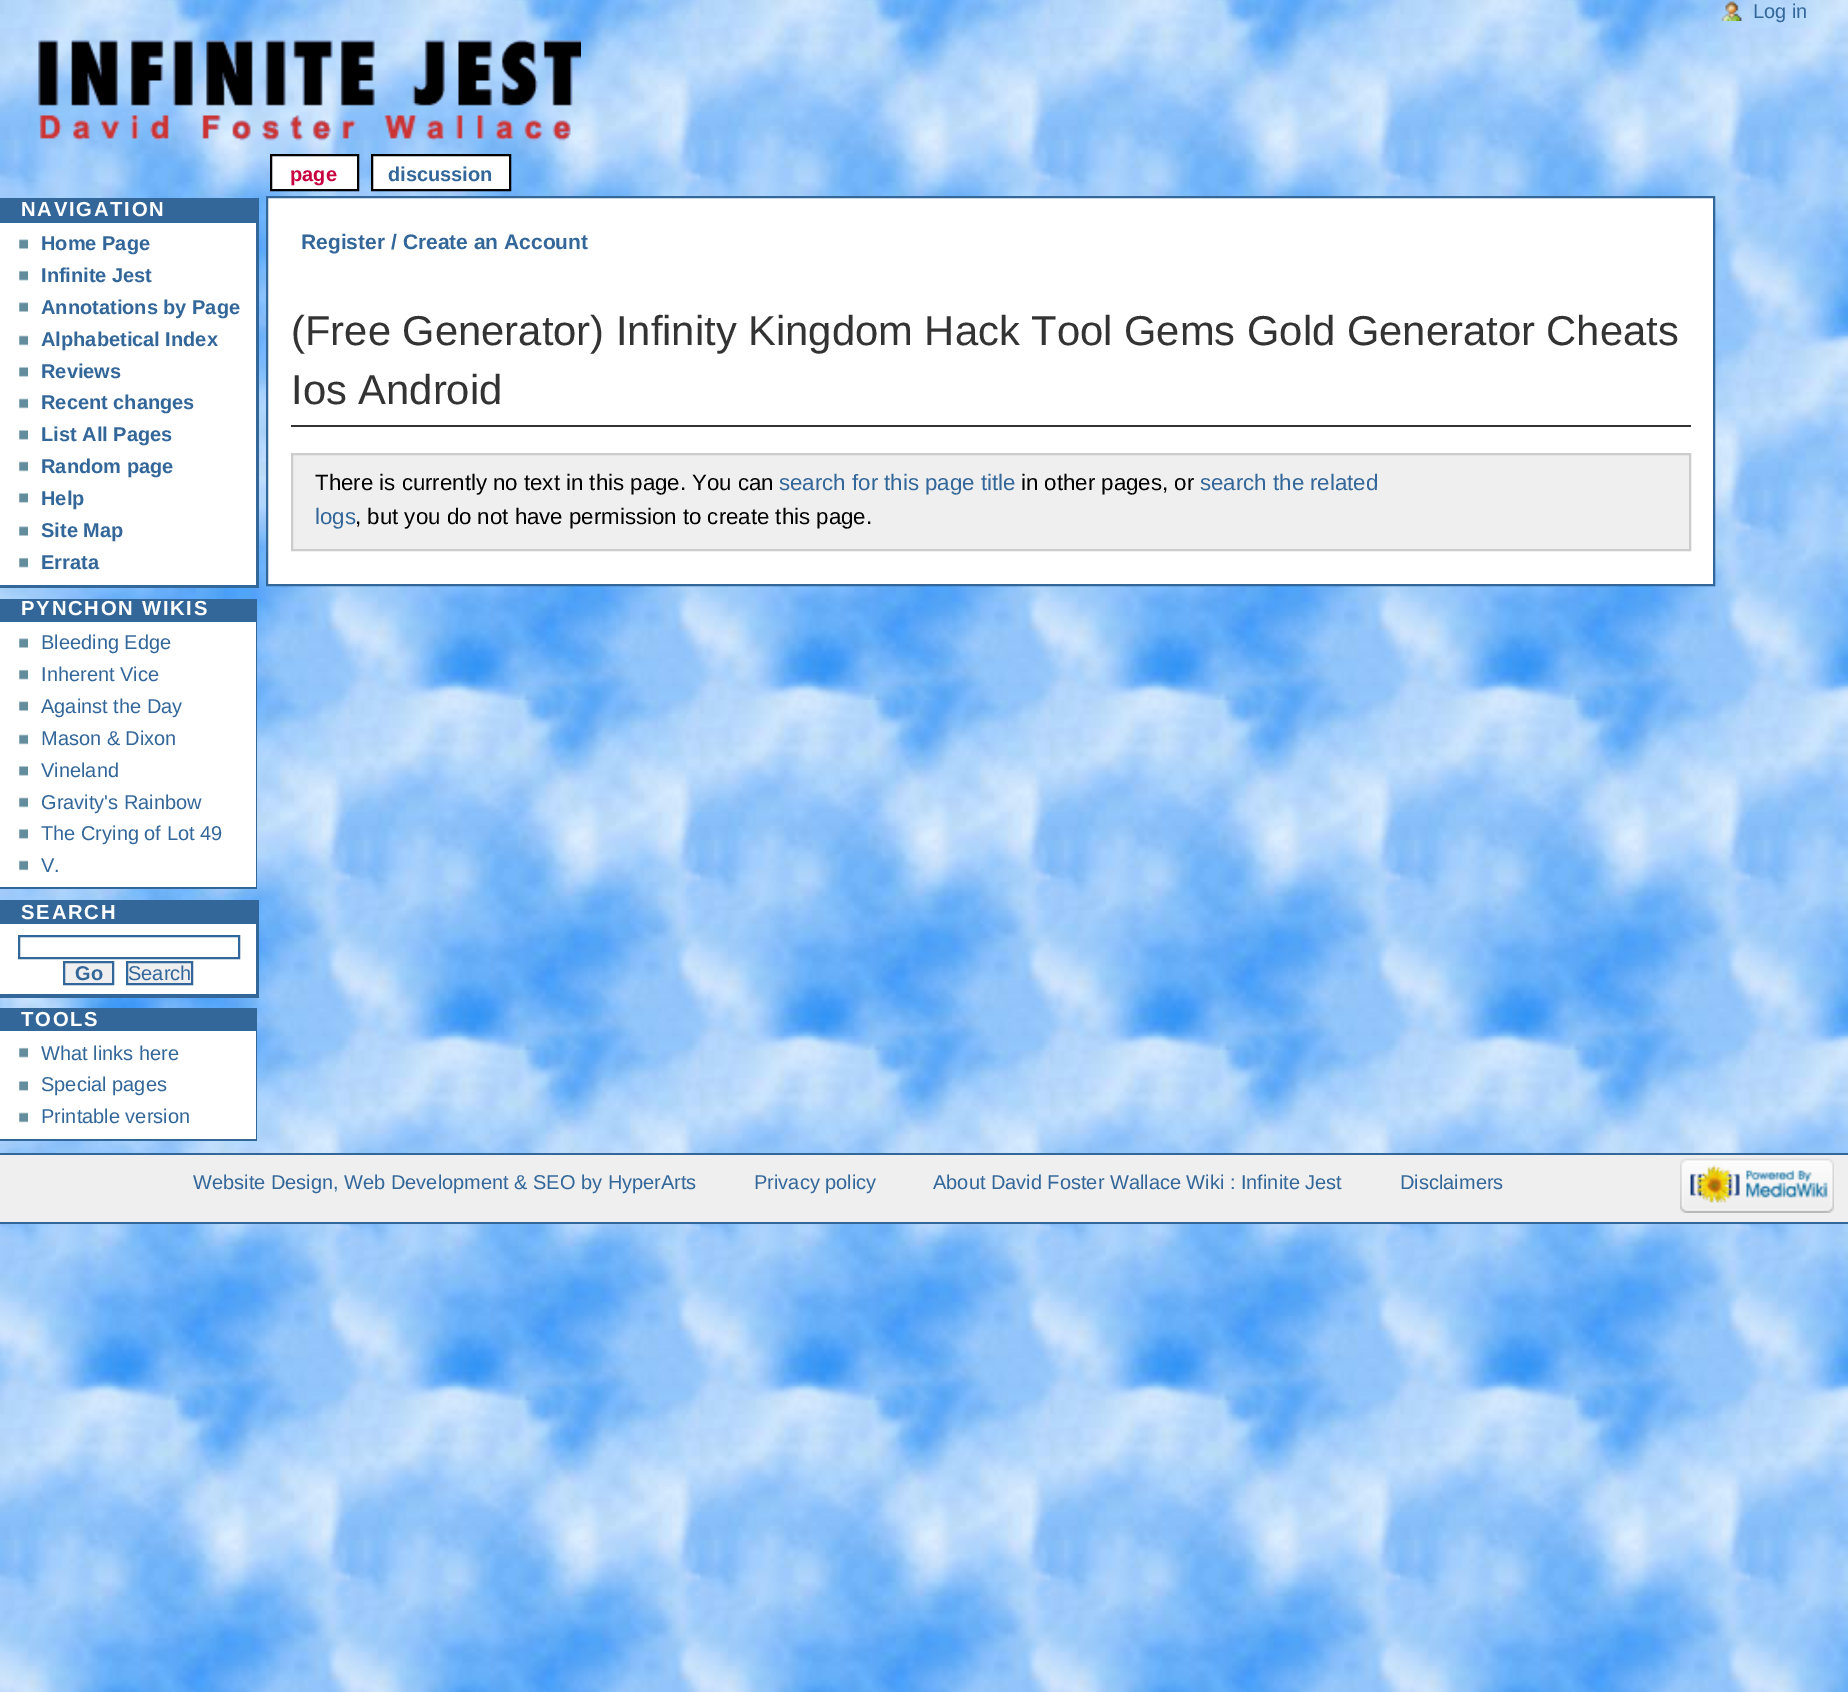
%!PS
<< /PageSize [1848 1692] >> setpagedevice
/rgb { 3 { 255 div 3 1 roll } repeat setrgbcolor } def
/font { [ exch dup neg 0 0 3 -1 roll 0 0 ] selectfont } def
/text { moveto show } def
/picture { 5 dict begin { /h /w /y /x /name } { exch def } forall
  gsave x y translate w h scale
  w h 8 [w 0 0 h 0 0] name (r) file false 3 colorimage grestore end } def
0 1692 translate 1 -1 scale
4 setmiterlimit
255 255 255 rgb
0 0 1848 1692 rectfill
(img_01.rgb) 0 0 1848 1692 picture
(img_02.rgb) 1721 1 21 20 picture
(img_03.rgb) 38 39 543 102 picture
271 155 moveto 87 0 rlineto 0 35 rlineto -87 0 rlineto closepath gsave fill grestore
0 0 0 rgb
2 setlinewidth
stroke
255 255 255 rgb
372 155 moveto 138 0 rlineto 0 35 rlineto -138 0 rlineto closepath gsave fill grestore
0 0 0 rgb
stroke
51 102 153 rgb
0 198 259 390 rectfill
255 255 255 rgb
0 223 256 362 rectfill
(img_04.rgb) 19 239 9 10 picture
(img_05.rgb) 19 270 9 11 picture
(img_04.rgb) 19 302 9 10 picture
(img_06.rgb) 19 335 9 11 picture
(img_07.rgb) 19 367 9 10 picture
(img_06.rgb) 19 398 9 11 picture
(img_07.rgb) 19 430 9 10 picture
(img_06.rgb) 19 461 9 11 picture
(img_07.rgb) 19 493 9 10 picture
(img_04.rgb) 19 526 9 10 picture
(img_05.rgb) 19 557 9 11 picture
51 102 153 rgb
0 599 257 23 rectfill
255 255 255 rgb
0 622 256 265 rectfill
51 102 153 rgb
256 620 1 269 rectfill
0 887 257 2 rectfill
(img_04.rgb) 19 638 9 10 picture
(img_05.rgb) 19 669 9 11 picture
(img_04.rgb) 19 701 9 10 picture
(img_06.rgb) 19 734 9 11 picture
(img_07.rgb) 19 766 9 10 picture
(img_06.rgb) 19 797 9 11 picture
(img_07.rgb) 19 829 9 10 picture
(img_06.rgb) 19 860 9 11 picture
0 900 259 98 rectfill
255 255 255 rgb
0 924 256 70 rectfill
51 102 153 rgb
19 936 220 22 rectstroke
239 239 239 rgb
64 962 moveto 49 0 rlineto 0 22 rlineto -49 0 rlineto closepath gsave fill grestore
51 102 153 rgb
stroke
239 239 239 rgb
127 962 moveto 65 0 rlineto 0 22 rlineto -65 0 rlineto closepath gsave fill grestore
51 102 153 rgb
stroke
0 1008 257 23 rectfill
255 255 255 rgb
0 1031 256 108 rectfill
51 102 153 rgb
256 1029 1 112 rectfill
0 1139 257 2 rectfill
(img_05.rgb) 19 1047 9 11 picture
(img_07.rgb) 19 1081 9 10 picture
(img_06.rgb) 19 1112 9 11 picture
255 255 255 rgb
267 197 moveto 1447 0 rlineto 0 388 rlineto -1447 0 rlineto closepath gsave fill grestore
51 102 153 rgb
stroke
51 51 51 rgb
291 425 1400 2 rectfill
239 239 239 rgb
292 454 moveto 1398 0 rlineto 0 96 rlineto -1398 0 rlineto closepath gsave fill grestore
204 204 204 rgb
stroke
239 239 239 rgb
0 1155 1848 67 rectfill
51 102 153 rgb
0 1153 1848 2 rectfill
0 1222 1848 2 rectfill
(img_08.rgb) 1680 1158 154 55 picture
/LiberationSans-Regular 20 font
(Log in) 1753 18 text
/LiberationSans-Bold 20 font
200 0 62 rgb
(page) 290 181 text
51 102 153 rgb
(discussion) 388 181 text
/LiberationSans-Bold 20.25 font
255 255 255 rgb
21 216 moveto 1.75 0 (NAVIGATION) ashow
/LiberationSans-Bold 20 font
51 102 153 rgb
(Home Page) 41 250 text
(Infinite Jest) 41 282 text
(Annotations by Page) 41 314 text
(Alphabetical Index) 41 346 text
(Reviews) 41 378 text
(Recent changes) 41 409 text
(List All Pages) 41 441 text
(Random page) 41 473 text
(Help) 41 505 text
(Site Map) 41 537 text
(Errata) 41 569 text
/LiberationSans-Bold 20.25 font
255 255 255 rgb
21 615 moveto 1.75 0 (PYNCHON WIKIS) ashow
/LiberationSans-Regular 20 font
51 102 153 rgb
(Bleeding Edge) 41 649 text
(Inherent Vice) 41 681 text
(Against the Day) 41 713 text
(Mason & Dixon) 41 745 text
(Vineland) 41 777 text
(Gravity's Rainbow) 41 809 text
(The Crying of Lot 49) 41 840 text
(V.) 41 872 text
/LiberationSans-Bold 20.25 font
255 255 255 rgb
21 919 moveto 1.75 0 (SEARCH) ashow
/LiberationSans-Bold 20 font
51 102 153 rgb
(Go) 75 980 text
/LiberationSans-Regular 20 font
(Search) 128 980 text
/LiberationSans-Bold 20.25 font
255 255 255 rgb
21 1026 moveto 1.75 0 (TOOLS) ashow
/LiberationSans-Regular 20 font
51 102 153 rgb
(What links here) 41 1060 text
(Special pages) 41 1091 text
(Printable version) 41 1123 text
/LiberationSans-Bold 21 font
(Register / Create an Account) 301 249 text
/LiberationSans-Regular 41.75 font
51 51 51 rgb
(\(Free Generator\) Infinity Kingdom Hack Tool Gems Gold Generator Cheats) 291 345 text
(Ios Android) 291 404 text
/LiberationSans-Regular 22.25 font
0 0 0 rgb
(There is currently no text in this page. You can) 315 490 text
51 102 153 rgb
(search for this page title) 779 490 text
0 0 0 rgb
(in other pages, or) 1021 490 text
51 102 153 rgb
(search the related) 1200 490 text
(logs) 315 524 text
0 0 0 rgb
(, but you do not have permission to create this page.) 355 524 text
/LiberationSans-Regular 20 font
51 102 153 rgb
(Website Design, Web Development & SEO by HyperArts) 193 1189 text
(Privacy policy) 754 1189 text
(About David Foster Wallace Wiki : Infinite Jest) 933 1189 text
(Disclaimers) 1400 1189 text
showpage
